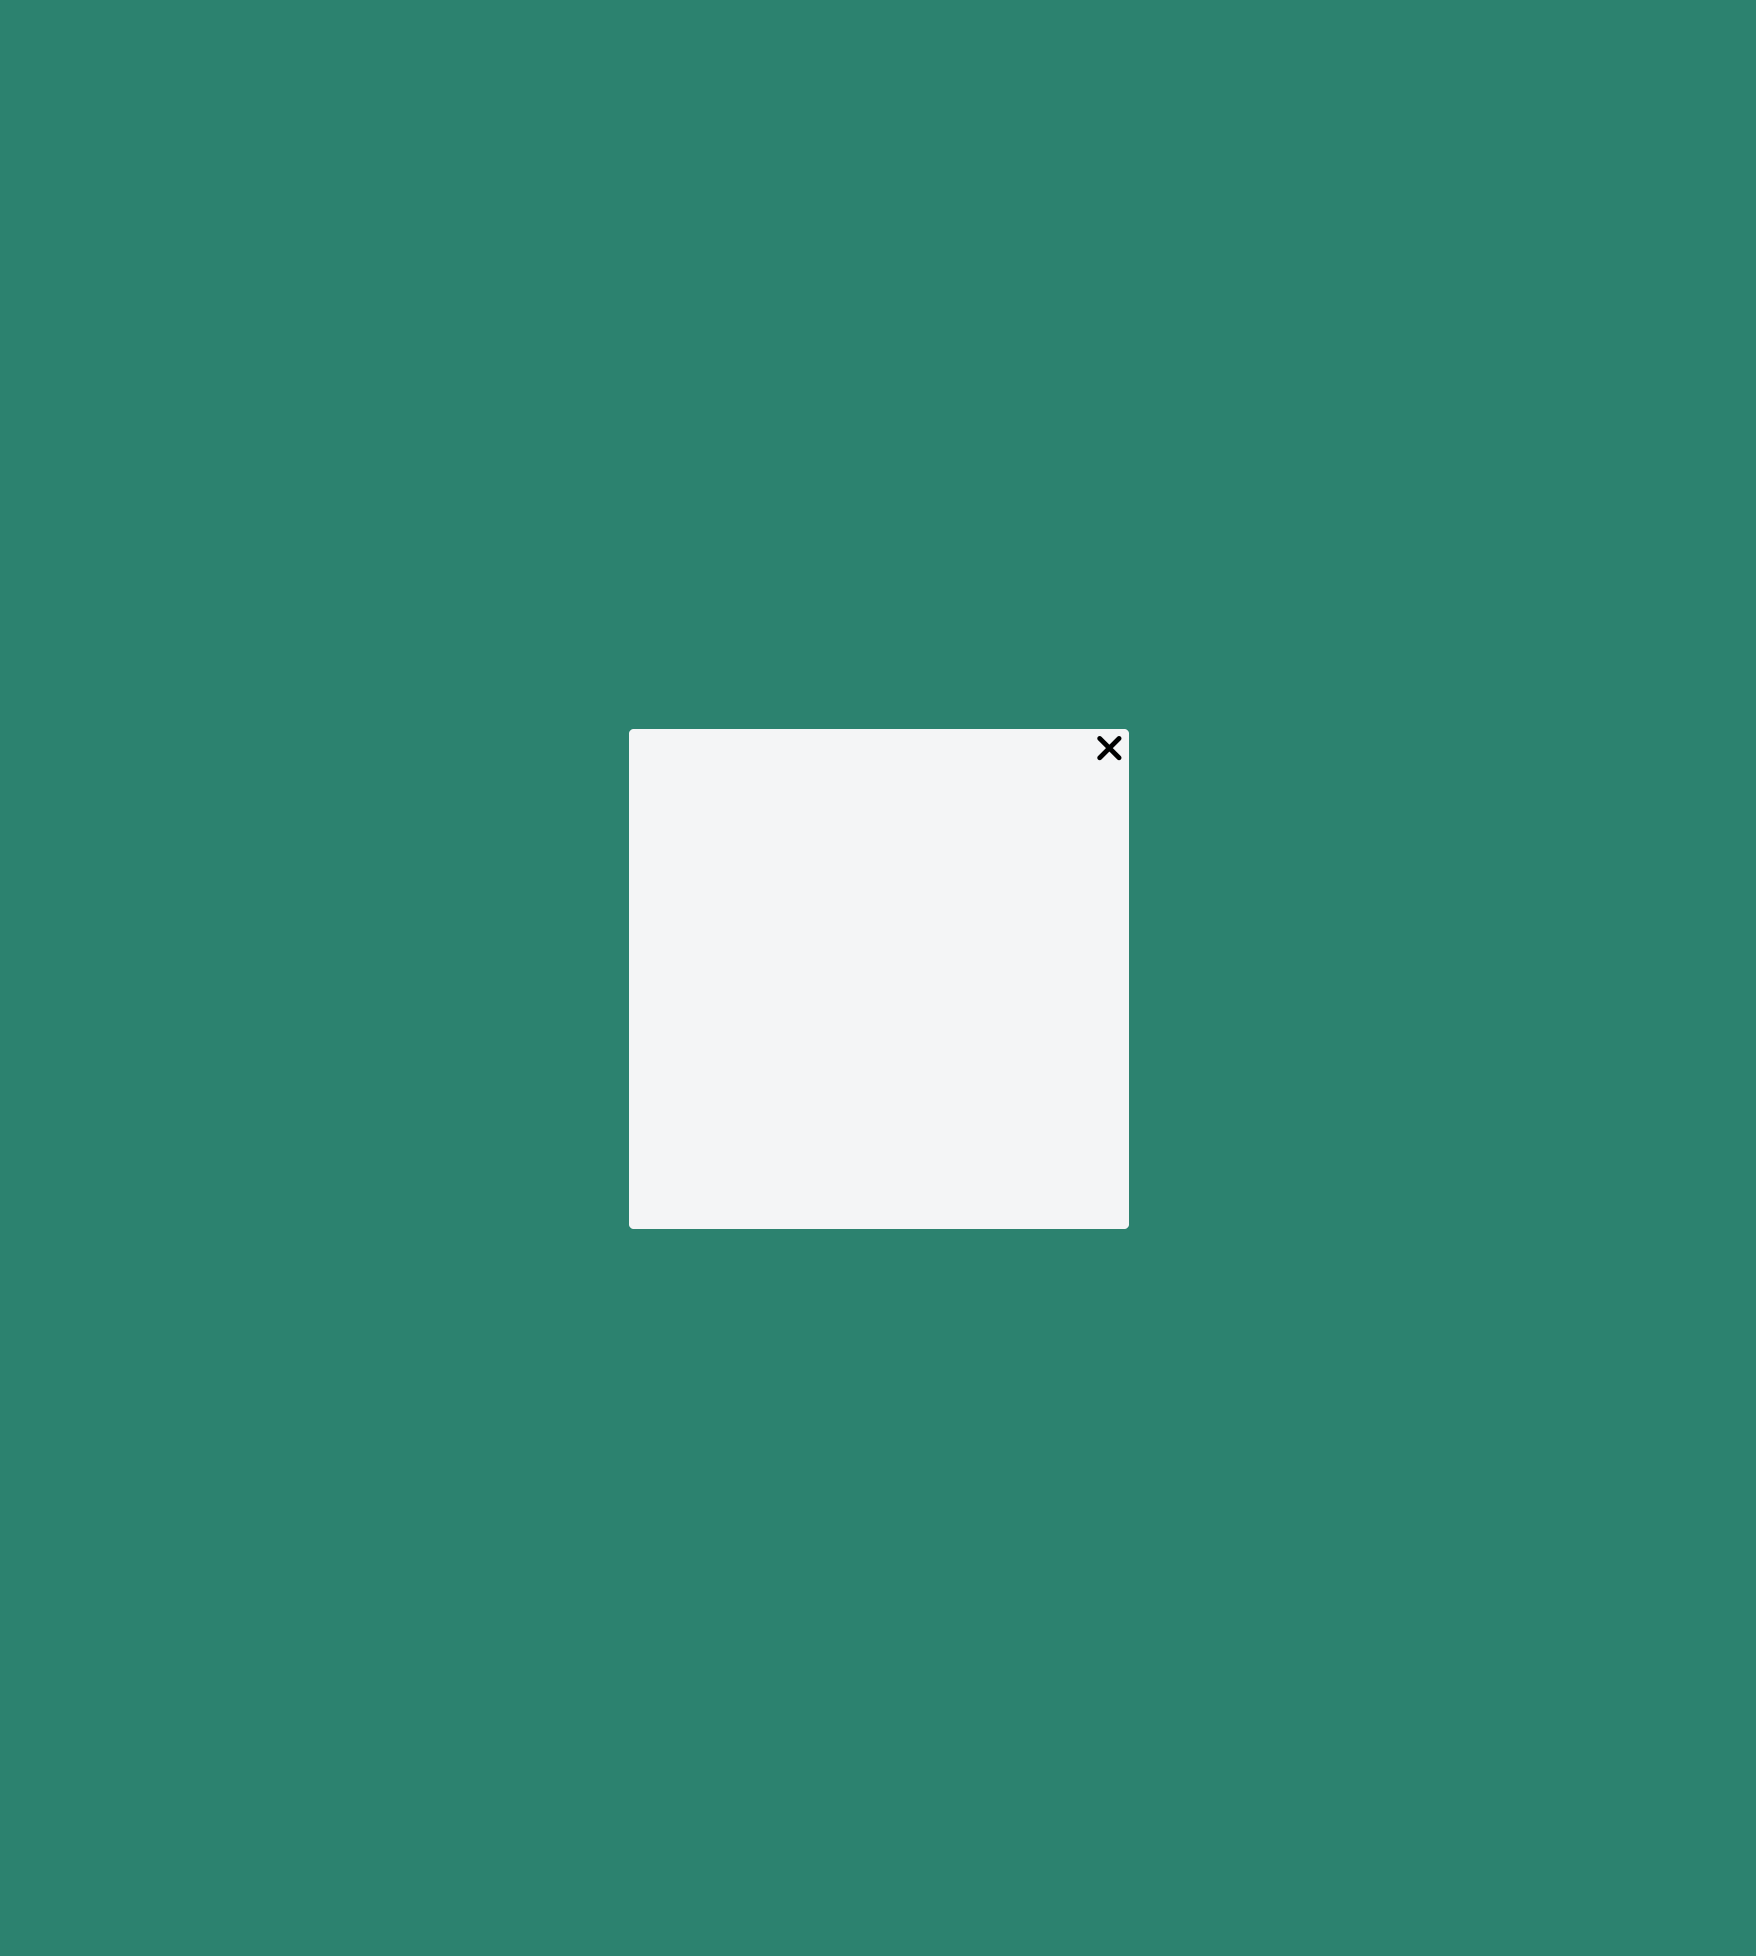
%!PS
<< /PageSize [1756 1956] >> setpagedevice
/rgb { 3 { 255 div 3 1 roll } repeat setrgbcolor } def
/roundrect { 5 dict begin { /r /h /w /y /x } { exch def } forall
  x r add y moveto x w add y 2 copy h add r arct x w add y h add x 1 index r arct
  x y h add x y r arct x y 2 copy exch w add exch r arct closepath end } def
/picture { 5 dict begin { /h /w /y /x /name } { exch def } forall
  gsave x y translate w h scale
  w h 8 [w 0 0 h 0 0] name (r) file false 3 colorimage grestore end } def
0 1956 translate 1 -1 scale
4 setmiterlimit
44 130 111 rgb
0 0 1756 1956 rectfill
244 245 246 rgb
629 729 500 500 5 roundrect fill
(img_01.rgb) 1097 736 25 25 picture
showpage
